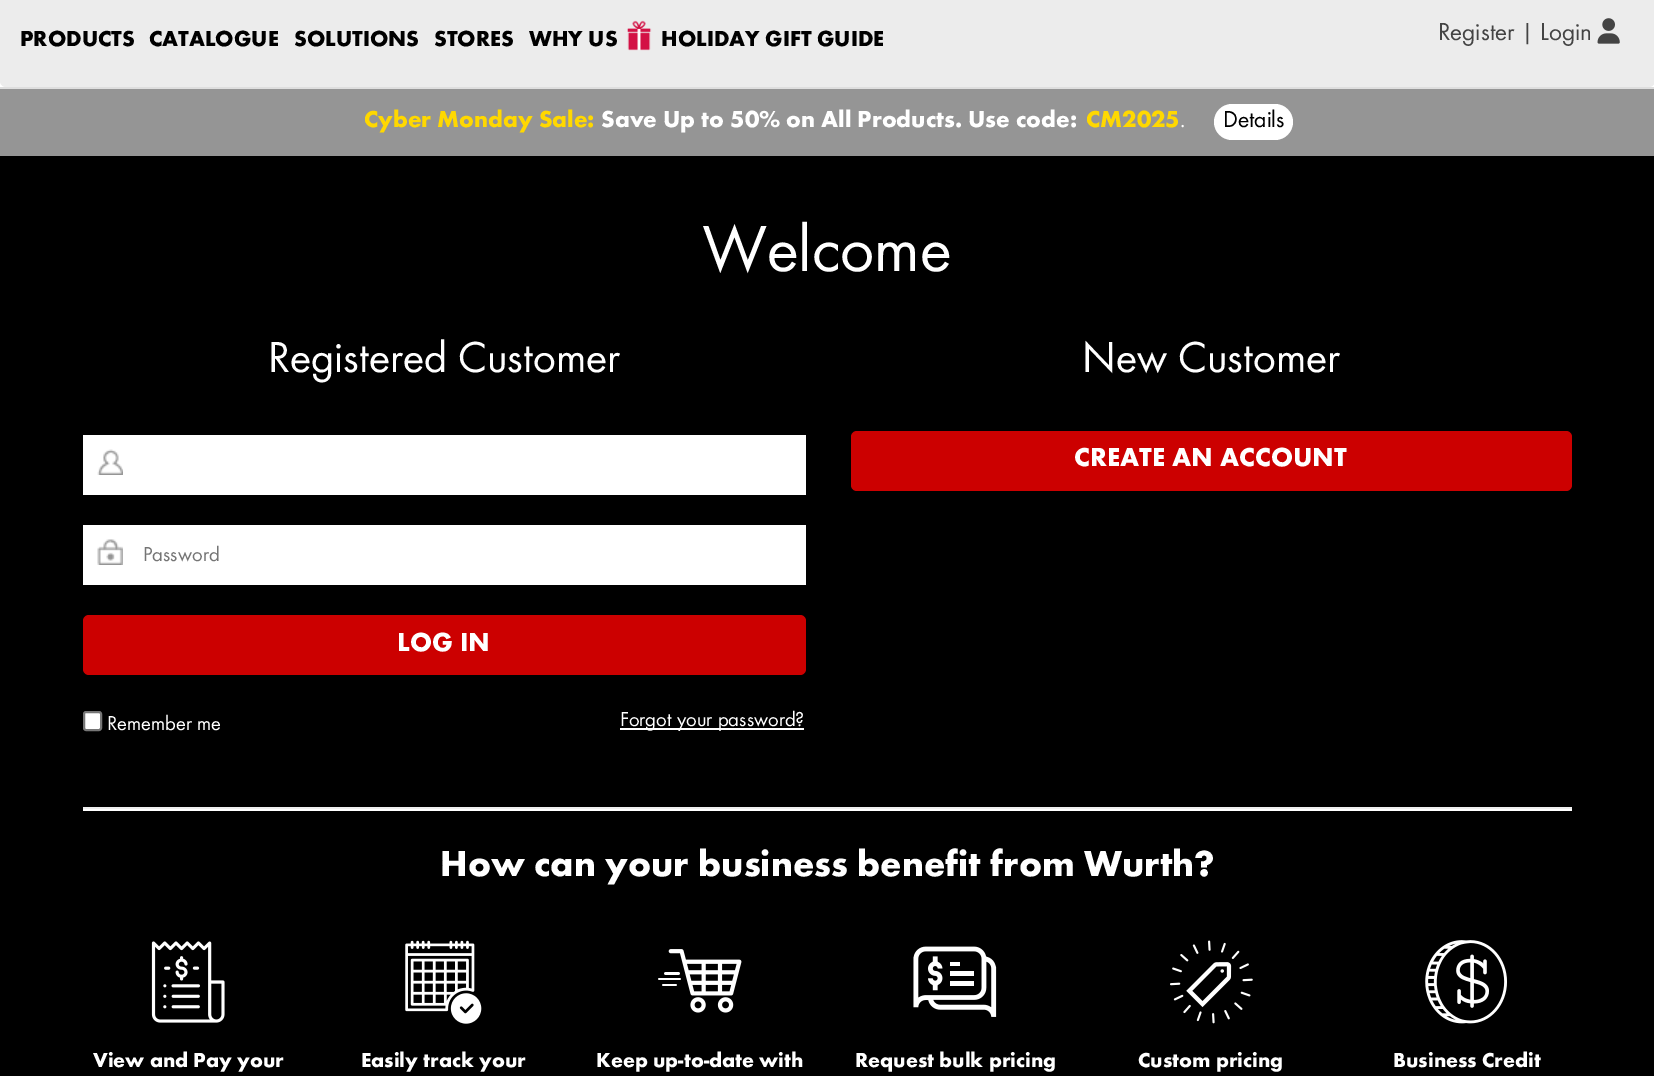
%!PS
<< /PageSize [1654 1076] >> setpagedevice
/rgb { 3 { 255 div 3 1 roll } repeat setrgbcolor } def
/font { [ exch dup neg 0 0 3 -1 roll 0 0 ] selectfont } def
/text { moveto show } def
/roundrect { 5 dict begin { /r /h /w /y /x } { exch def } forall
  x r add y moveto x w add y 2 copy h add r arct x w add y h add x 1 index r arct
  x y h add x y r arct x y 2 copy exch w add exch r arct closepath end } def
/picture { 5 dict begin { /h /w /y /x /name } { exch def } forall
  gsave x y translate w h scale
  w h 8 [w 0 0 h 0 0] name (r) file false 3 colorimage grestore end } def
0 1076 translate 1 -1 scale
4 setmiterlimit
0 0 0 rgb
0 0 1654 1076 rectfill
255 255 255 rgb
0 81 1654 6 rectfill
222 222 222 rgb
0 87 1654 2 rectfill
236 236 236 rgb
0 -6 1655 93 6 roundrect fill
(img_01.rgb) 627 20 25 31 picture
(img_02.rgb) 1597 18 23 26 picture
149 149 149 rgb
0 89 1654 67 rectfill
255 255 255 rgb
1214 104 79 36 18 roundrect fill
83 435 723 60 rectfill
(img_03.rgb) 97 449 26 26 picture
83 525 723 60 rectfill
(img_04.rgb) 97 539 26 26 picture
204 0 0 rgb
83 615 723 60 6 roundrect fill
255 255 255 rgb
84 712 17 18 2 roundrect gsave fill grestore
118 118 118 rgb
2 setlinewidth
stroke
255 255 255 rgb
620 728 184 2 rectfill
204 0 0 rgb
851 431 721 60 6 roundrect fill
238 238 238 rgb
83 807 1489 2 rectfill
255 255 255 rgb
83 809 1489 2 rectfill
(img_05.rgb) 151 941 74 82 picture
(img_06.rgb) 405 940 77 84 picture
(img_07.rgb) 658 949 84 64 picture
(img_08.rgb) 913 946 84 71 picture
(img_09.rgb) 1170 940 83 84 picture
(img_10.rgb) 1425 940 82 84 picture
/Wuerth-Bold 22.5 font
0 0 0 rgb
(PRODUCTS) 20 46 text
(CATALOGUE) 149 46 text
(SOLUTIONS) 294 46 text
(STORES) 434 46 text
(WHY US) 529 46 text
(HOLIDAY GIFT GUIDE) 661 46 text
/Wuerth-Regular 25.5 font
68 68 68 rgb
(Register | Login) 1438 40 text
/Wuerth-Bold 24 font
255 216 0 rgb
(Cyber Monday Sale:) 364 127 text
255 255 255 rgb
(Save Up to 50% on All Products. Use code:) 601 127 text
255 216 0 rgb
(CM2025) 1086 127 text
/Wuerth-Regular 24 font
255 255 255 rgb
(.) 1180 127 text
0 0 0 rgb
(Details) 1223 127 text
/Wuerth-Regular 67.5 font
255 255 255 rgb
(Welcome) 703 271 text
/Wuerth-Regular 45 font
(Registered Customer) 268 372 text
/Wuerth-Regular 21 font
117 117 117 rgb
(Password) 143 561 text
/Wuerth-Bold 27 font
255 255 255 rgb
(LOG IN) 397 651 text
/Wuerth-Regular 21 font
(Remember me) 107 730 text
(Forgot your password?) 620 726 text
/Wuerth-Regular 45 font
(New Customer) 1082 372 text
/Wuerth-Bold 27 font
(CREATE AN ACCOUNT) 1074 466 text
/Wuerth-Bold 37.5 font
(How can your business benefit from Wurth?) 440 876 text
/Wuerth-Bold 21 font
(View and Pay your) 93 1067 text
(Easily track your) 361 1067 text
(Keep up-to-date with) 596 1067 text
(Request bulk pricing) 855 1067 text
(Custom pricing) 1138 1067 text
(Business Credit) 1393 1067 text
showpage
